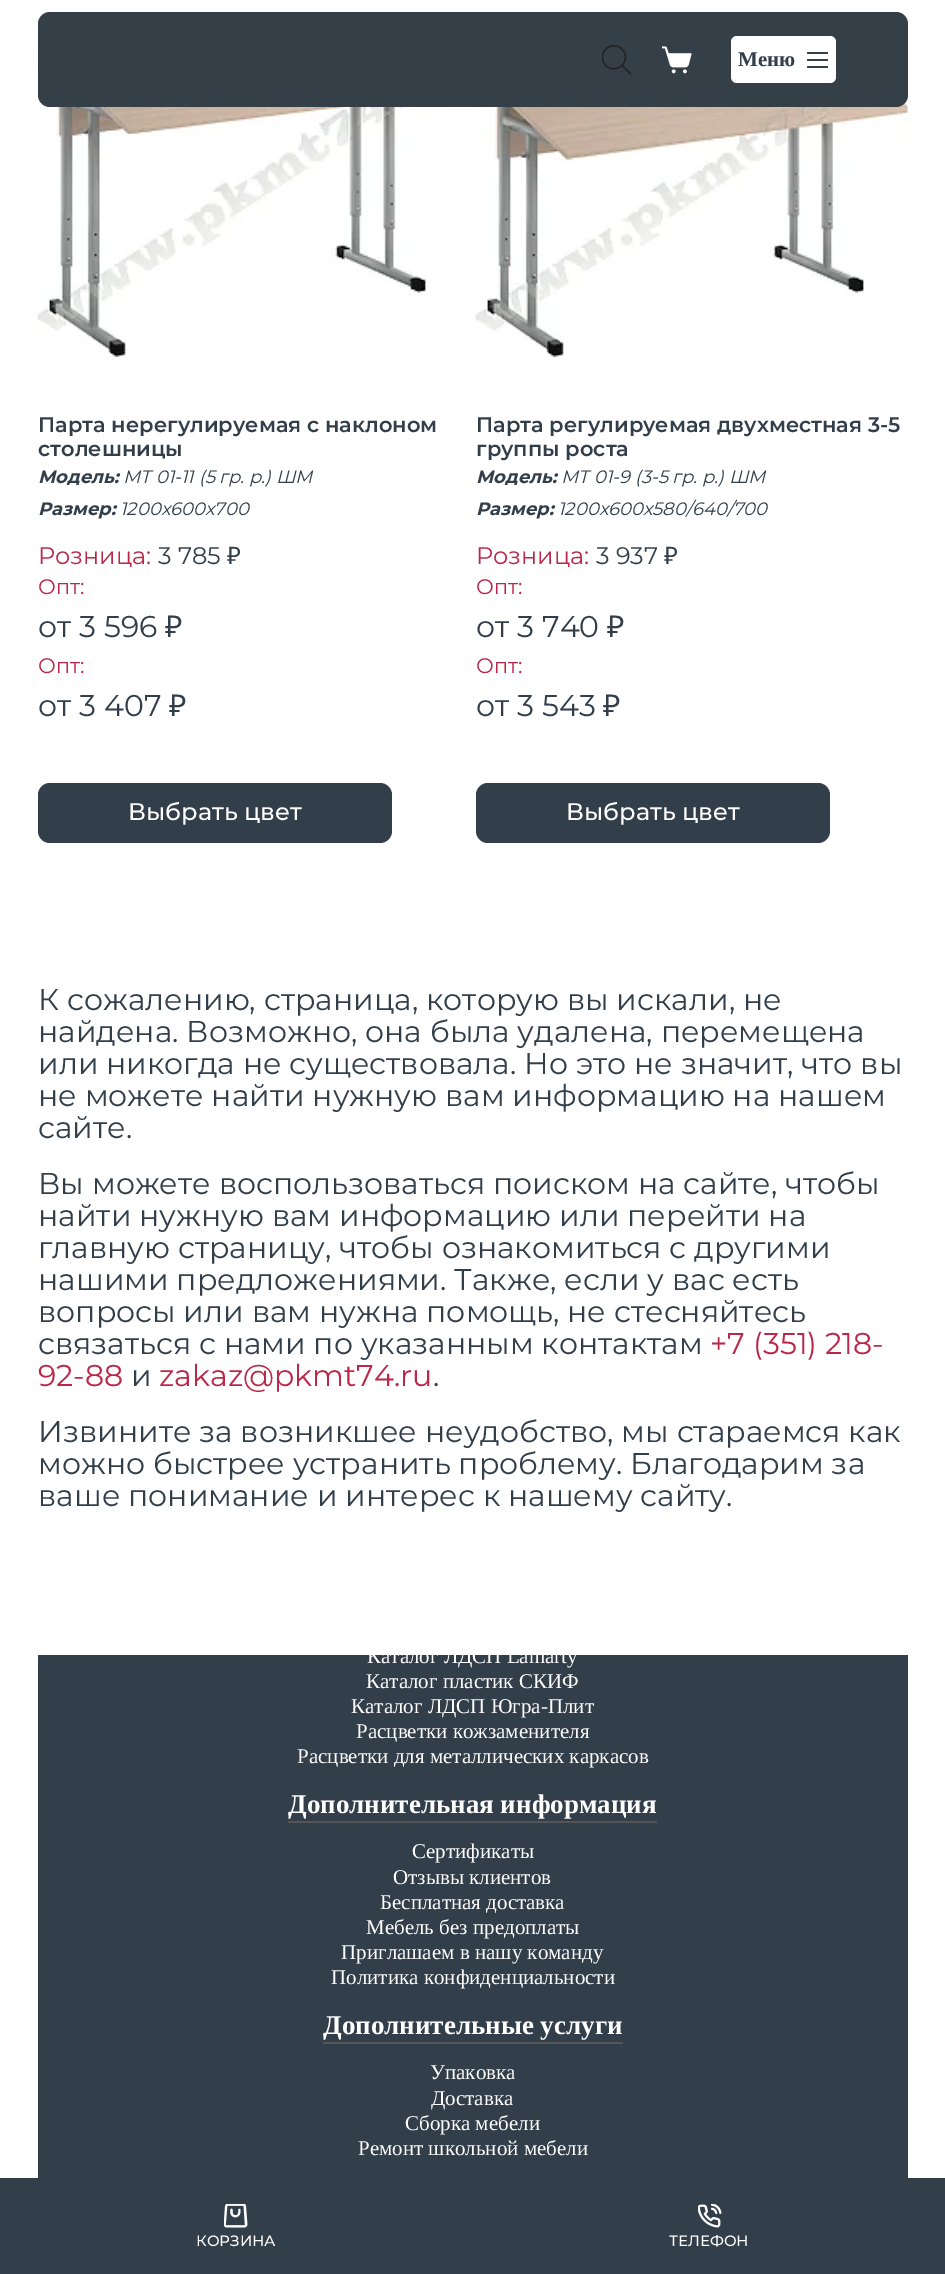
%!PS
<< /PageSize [945 2274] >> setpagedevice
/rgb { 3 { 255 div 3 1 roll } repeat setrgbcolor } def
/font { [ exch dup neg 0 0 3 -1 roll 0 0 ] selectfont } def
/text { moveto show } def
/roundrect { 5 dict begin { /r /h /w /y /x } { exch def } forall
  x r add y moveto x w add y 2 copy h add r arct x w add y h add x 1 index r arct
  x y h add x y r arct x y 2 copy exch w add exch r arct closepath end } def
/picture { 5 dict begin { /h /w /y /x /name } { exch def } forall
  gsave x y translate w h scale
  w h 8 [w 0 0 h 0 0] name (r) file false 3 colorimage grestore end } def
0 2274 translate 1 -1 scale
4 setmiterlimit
255 255 255 rgb
0 0 945 2274 rectfill
(img_03.rgb) 37 24 433 336 picture
(img_04.rgb) 475 95 433 263 picture
53 63 72 rgb
38 12 870 95 12 roundrect fill
(img_01.rgb) 602 45 30 30 picture
(img_02.rgb) 662 46 30 28 picture
255 255 255 rgb
731 36 105 47 6 roundrect fill
53 63 72 rgb
807 52 21 2 1 roundrect fill
807 59 21 2 1 roundrect fill
807 66 21 2 1 roundrect fill
50 62 74 rgb
38 783 354 60 12 roundrect fill
476 783 354 60 12 roundrect fill
38 1655 870 523 rectfill
85 85 85 rgb
288 1821 369 2 rectfill
323 2042 300 2 rectfill
50 62 74 rgb
0 2178 945 96 rectfill
(img_05.rgb) 224 2204 24 24 picture
(img_06.rgb) 698 2204 24 24 picture
/LiberationSerif-Bold 21 font
(Меню) 738 66 text
/Montserrat-SemiBold 21 font
(Парта нерегулируемая с наклоном) 38 432 text
(столешницы) 38 456 text
/Montserrat-BoldItalic 18 font
(Модель:) 38 483 text
/Montserrat-Italic 18 font
(МТ 01-11 \(5 гр. р.\) ШМ) 123 483 text
/Montserrat-BoldItalic 18 font
(Размер:) 38 515 text
/Montserrat-Italic 18 font
(1200х600х700) 120 515 text
/Montserrat-Regular 24 font
187 38 73 rgb
(Розница:) 38 564 text
50 62 74 rgb
(3 785) 158 564 text
/NotoSans-Regular 24 font
(₽) 227 564 text
/Montserrat-Regular 21 font
187 38 73 rgb
(Опт:) 38 594 text
/Montserrat-Regular 30 font
50 62 74 rgb
(от 3 596) 38 637 text
/NotoSans-Regular 30 font
(₽) 165 637 text
/Montserrat-Regular 21 font
187 38 73 rgb
(Опт:) 38 673 text
/Montserrat-Regular 30 font
50 62 74 rgb
(от 3 407) 38 716 text
/NotoSans-Regular 30 font
(₽) 169 716 text
/Montserrat-Medium 24 font
255 255 255 rgb
(Выбрать цвет) 128 820 text
/Montserrat-SemiBold 21 font
50 62 74 rgb
(Парта регулируемая двухместная 3-5) 476 432 text
(группы роста) 476 456 text
/Montserrat-BoldItalic 18 font
(Модель:) 476 483 text
/Montserrat-Italic 18 font
(МТ 01-9 \(3-5 гр. р.\) ШМ) 561 483 text
/Montserrat-BoldItalic 18 font
(Размер:) 476 515 text
/Montserrat-Italic 18 font
(1200х600х580/640/700) 558 515 text
/Montserrat-Regular 24 font
187 38 73 rgb
(Розница:) 476 564 text
50 62 74 rgb
(3 937) 596 564 text
/NotoSans-Regular 24 font
(₽) 664 564 text
/Montserrat-Regular 21 font
187 38 73 rgb
(Опт:) 476 594 text
/Montserrat-Regular 30 font
50 62 74 rgb
(от 3 740) 476 637 text
/NotoSans-Regular 30 font
(₽) 607 637 text
/Montserrat-Regular 21 font
187 38 73 rgb
(Опт:) 476 673 text
/Montserrat-Regular 30 font
50 62 74 rgb
(от 3 543) 476 716 text
/NotoSans-Regular 30 font
(₽) 603 716 text
/Montserrat-Medium 24 font
255 255 255 rgb
(Выбрать цвет) 566 820 text
/Montserrat-Regular 30 font
50 62 74 rgb
(К сожалению, страница, которую вы искали, не) 38 1010 text
(найдена. Возможно, она была удалена, перемещена) 38 1042 text
(или никогда не существовала. Но это не значит, что вы) 38 1074 text
(не можете найти нужную вам информацию на нашем) 38 1106 text
(сайте.) 38 1138 text
(Вы можете воспользоваться поиском на сайте, чтобы) 38 1194 text
(найти нужную вам информацию или перейти на) 38 1226 text
(главную страницу, чтобы ознакомиться с другими) 38 1258 text
(нашими предложениями. Также, если у вас есть) 38 1290 text
(вопросы или вам нужна помощь, не стесняйтесь) 38 1322 text
(связаться с нами по указанным контактам) 38 1354 text
187 38 73 rgb
(+7 \(351\) 218-) 710 1354 text
(92-88) 38 1386 text
50 62 74 rgb
(и) 131 1386 text
187 38 73 rgb
(zakaz@pkmt74.ru) 159 1386 text
50 62 74 rgb
(.) 433 1386 text
(Извините за возникшее неудобство, мы стараемся как) 38 1442 text
(можно быстрее устранить проблему. Благодарим за) 38 1474 text
(ваше понимание и интерес к нашему сайту.) 38 1506 text
/LiberationSerif-Regular 21 font
255 255 255 rgb
(Каталог ЛДСП Lamarty) 367 1663 text
(Каталог пластик СКИФ) 366 1688 text
(Каталог ЛДСП Югра-Плит) 351 1713 text
(Расцветки кожзаменителя) 356 1738 text
(Расцветки для металлических каркасов) 297 1763 text
/LiberationSerif-Bold 27 font
(Дополнительная информация) 288 1813 text
/LiberationSerif-Regular 21 font
(Сертификаты) 412 1858 text
(Отзывы клиентов) 393 1884 text
(Бесплатная доставка) 380 1909 text
(Мебель без предоплаты) 366 1934 text
(Приглашаем в нашу команду) 341 1959 text
(Политика конфиденциальности) 331 1984 text
/LiberationSerif-Bold 27 font
(Дополнительные услуги) 323 2034 text
/LiberationSerif-Regular 21 font
(Упаковка) 430 2079 text
(Доставка) 431 2105 text
(Сборка мебели) 405 2130 text
(Ремонт школьной мебели) 358 2155 text
/Montserrat-Medium 15 font
(КОРЗИНА) 196 2246 text
(ТЕЛЕФОН) 669 2246 text
showpage
